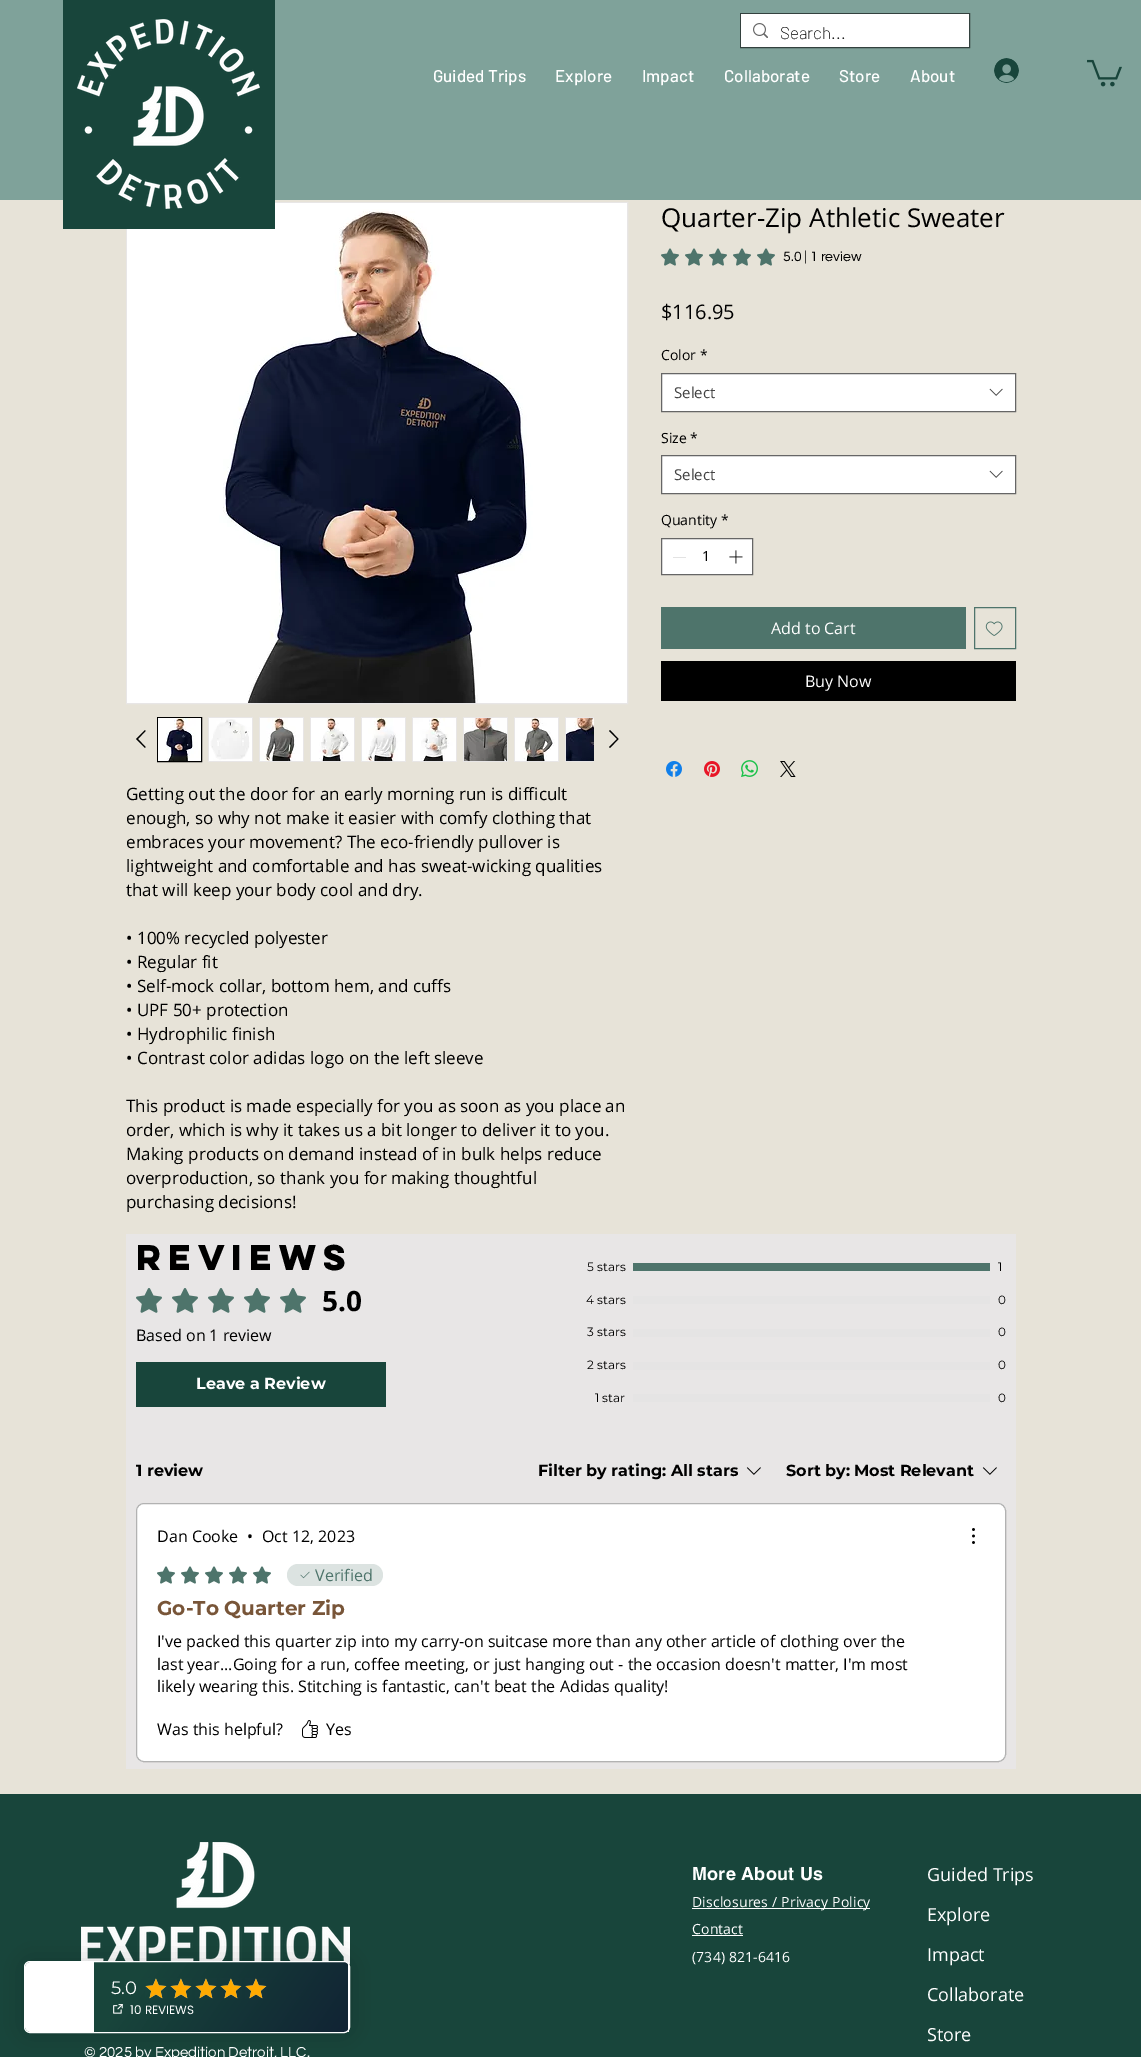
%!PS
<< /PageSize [1141 2057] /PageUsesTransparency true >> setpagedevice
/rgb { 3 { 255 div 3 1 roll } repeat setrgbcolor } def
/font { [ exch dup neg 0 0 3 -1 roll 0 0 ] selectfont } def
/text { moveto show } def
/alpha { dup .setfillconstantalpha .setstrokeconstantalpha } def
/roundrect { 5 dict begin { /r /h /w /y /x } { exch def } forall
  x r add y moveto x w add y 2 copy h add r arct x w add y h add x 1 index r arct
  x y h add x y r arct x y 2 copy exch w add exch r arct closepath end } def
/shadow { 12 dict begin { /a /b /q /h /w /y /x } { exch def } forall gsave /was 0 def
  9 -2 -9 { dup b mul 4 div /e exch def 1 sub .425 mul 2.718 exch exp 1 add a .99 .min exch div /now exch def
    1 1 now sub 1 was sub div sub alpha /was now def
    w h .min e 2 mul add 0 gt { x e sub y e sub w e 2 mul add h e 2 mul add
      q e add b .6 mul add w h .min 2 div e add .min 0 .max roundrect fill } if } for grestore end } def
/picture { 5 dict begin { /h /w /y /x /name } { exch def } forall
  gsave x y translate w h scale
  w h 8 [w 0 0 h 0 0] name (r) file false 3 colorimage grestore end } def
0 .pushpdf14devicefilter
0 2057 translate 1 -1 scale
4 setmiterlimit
231 227 216 rgb
0 0 1141 2057 rectfill
127 162 154 rgb
0 0 1141 200 rectfill
232 230 230 rgb
126.5 202.5 501 501 rectstroke
(img_13.rgb) 127 203 500 500 picture
24 69 59 rgb
63 0 212 229 rectfill
(img_01.rgb) 77 19 183 190 picture
51 65 62 rgb
740.5 13.5 229 34 rectstroke
255 255 255 rgb
741 14 228 33 rectfill
(img_02.rgb) 753 23 15 15 picture
(img_03.rgb) 994 58 25 25 picture
(img_04.rgb) 1087 59 35 28 picture
(img_05.rgb) 661 248 18 18 picture
(img_05.rgb) 685 248 18 18 picture
(img_05.rgb) 709 248 18 18 picture
(img_05.rgb) 733 248 18 18 picture
(img_05.rgb) 757 248 18 18 picture
661.5 373.5 moveto 354 0 rlineto 0 38 rlineto -354 0 rlineto closepath gsave fill grestore
102 102 102 rgb
stroke
(img_06.rgb) 989 388 14 8 picture
255 255 255 rgb
661.5 455.5 moveto 354 0 rlineto 0 38 rlineto -354 0 rlineto closepath gsave fill grestore
102 102 102 rgb
stroke
(img_06.rgb) 989 470 14 8 picture
255 255 255 rgb
661.5 538.5 moveto 91 0 rlineto 0 36 rlineto -91 0 rlineto closepath gsave fill grestore
102 102 102 rgb
stroke
227 227 227 rgb
673 557 13 1 rectfill
(img_07.rgb) 729 550 14 14 picture
78 116 107 rgb
661 607 305 42 rectfill
974.5 607.5 41 41 rectstroke
(img_08.rgb) 985 621 18 15 picture
0 0 0 rgb
661 661 355 40 rectfill
(img_09.rgb) 666 761 16 16 picture
(img_10.rgb) 704 761 16 16 picture
(img_11.rgb) 741 760 17 17 picture
(img_12.rgb) 780 761 16 16 picture
145 730 moveto 0.5 1 rlineto -7.5 8 rlineto 7.5 8 rlineto -0.5 1 rlineto -9 -9 rlineto closepath eofill
157.5 717.5 44 44 rectstroke
(img_14.rgb) 158 718 43 43 picture
232 230 230 rgb
208 717 45 45 rectfill
(img_15.rgb) 209 718 43 43 picture
259 717 45 45 rectfill
(img_16.rgb) 260 718 43 43 picture
310 717 45 45 rectfill
(img_17.rgb) 311 718 43 43 picture
361 717 45 45 rectfill
(img_18.rgb) 362 718 43 43 picture
412 717 45 45 rectfill
(img_19.rgb) 413 718 43 43 picture
463 717 45 45 rectfill
(img_20.rgb) 464 718 43 43 picture
514 717 45 45 rectfill
(img_21.rgb) 515 718 43 43 picture
565 717 29 45 rectfill
(img_22.rgb) 566 718 28 43 picture
0 0 0 rgb
610 730 moveto 8.5 9 rlineto -8.5 9 rlineto -1 -1 rlineto 8 -8 rlineto -8 -8 rlineto closepath eofill
232 230 230 rgb
126 1234 890 535 rectfill
(img_23.rgb) 136 1288 26 25 picture
(img_23.rgb) 172 1288 26 25 picture
(img_23.rgb) 208 1288 26 25 picture
(img_23.rgb) 244 1288 26 25 picture
(img_23.rgb) 280 1288 26 25 picture
24 69 59 rgb
136 1362 250 45 rectfill
78 116 107 rgb
633 1263 357 8 rectfill
229 228 228 rgb
633 1296 357 8 rectfill
633 1329 357 8 rectfill
633 1362 357 8 rectfill
633 1394 357 8 rectfill
(img_24.rgb) 746 1467 15 8 picture
(img_24.rgb) 982 1467 15 8 picture
255 255 255 rgb
136 1503 870 259 8 roundrect fill
0.3 alpha
0 0 0 rgb
136.5 1503.5 869 258 7.5 roundrect stroke
1 alpha
(img_25.rgb) 972 1528 3 16 picture
(img_26.rgb) 157 1566 18 18 picture
(img_26.rgb) 181 1566 18 18 picture
(img_26.rgb) 205 1566 18 18 picture
(img_26.rgb) 229 1566 18 18 picture
(img_26.rgb) 253 1566 18 18 picture
220 227 225 rgb
287 1564 96 22 11 roundrect fill
(img_27.rgb) 300 1571 10 8 picture
(img_28.rgb) 302 1720 16 18 picture
24 69 59 rgb
0 1794 1141 263 rectfill
255 255 255 rgb
692 1908 178 1 rectfill
692 1935 51 1 rectfill
(img_29.rgb) 81 1842 269 123 picture
0 0 0 rgb
18 1955 338 84 12 12 0.12 shadow
gsave
24 1961 326 72 6 roundrect clip newpath
24 1961 326 72 6 roundrect clip newpath
gsave 25 1962 moveto 324 0 rlineto 0 70 rlineto -324 0 rlineto closepath clip newpath
<< /ShadingType 2 /ColorSpace /DeviceRGB /Coords [62 1909 313 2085] /Extend [true true] /Function << /FunctionType 3 /Domain [0 1] /Functions [<< /FunctionType 2 /Domain [0 1] /C0 [0.094 0.271 0.231] /C1 [0.094 0.271 0.231] /N 1 >> << /FunctionType 2 /Domain [0 1] /C0 [0.094 0.271 0.231] /C1 [0.067 0.137 0.204] /N 1 >>] /Bounds [0.34] /Encode [0 1 0 1] >> >> shfill grestore
grestore
255 255 255 rgb
24.5 1961.5 325 71 5.5 roundrect stroke
31 1962 moveto 63 0 rlineto 0 70 rlineto -63 0 rlineto -3.5 0 -6 -2.5 -6 -6 rcurveto 0 -58 rlineto 0 -3.5 2.5 -6 6 -6 rcurveto closepath fill
gsave
24 1961 326 72 6 roundrect clip newpath
348 1962 1 70 rectfill
grestore
(img_30.rgb) 145 1978 22 21 picture
(img_31.rgb) 145 1978 22 21 picture
(img_32.rgb) 170 1978 22 21 picture
(img_33.rgb) 170 1978 22 21 picture
(img_34.rgb) 195 1978 22 21 picture
(img_35.rgb) 195 1978 22 21 picture
(img_36.rgb) 220 1978 22 21 picture
(img_37.rgb) 220 1978 22 21 picture
(img_38.rgb) 245 1978 22 21 picture
(img_39.rgb) 245 1978 22 21 picture
(img_40.rgb) 113 2004 10 10 picture
/Barlow-ExtraLight 17 font
0 0 0 rgb
(Search...) 780 39 text
/Barlow-Medium 17 font
255 255 255 rgb
(Guided Trips) 433 82 text
(Explore) 555 82 text
(Impact) 642 82 text
(Collaborate) 724 82 text
(Store) 839 82 text
(About) 910 82 text
/OpenSans-Regular 26 font
0 0 0 rgb
(Quarter-Zip Athletic Sweater) 661 227 text
/Questrial-Regular 14 font
(5.0 | 1 review) 783 261 text
/OpenSans-Regular 20 font
($116.95) 661 319 text
/OpenSans-Regular 14 font
(Color) 661 360 text
(*) 700 360 text
/OpenSans-Regular 15 font
68 68 68 rgb
(Select) 674 398 text
/OpenSans-Regular 14 font
0 0 0 rgb
(Size) 661 443 text
(*) 690 443 text
/OpenSans-Regular 15 font
68 68 68 rgb
(Select) 674 480 text
/OpenSans-Regular 14 font
0 0 0 rgb
(Quantity) 661 525 text
(*) 721 525 text
(1) 702 561 text
/OpenSans-Regular 16 font
255 255 255 rgb
(Add to Cart) 771 634 text
(Buy Now) 805 687 text
/OpenSans-Regular 17 font
0 0 0 rgb
(Getting out the door for an early morning run is difficult) 126 800 text
(enough, so why not make it easier with comfy clothing that) 126 824 text
(embraces your movement? The eco-friendly pullover is) 126 848 text
(lightweight and comfortable and has sweat-wicking qualities) 126 872 text
(that will keep your body cool and dry.) 126 896 text
(• 100% recycled polyester) 126 944 text
(• Regular fit) 126 968 text
(• Self-mock collar, bottom hem, and cuffs) 126 992 text
(• UPF 50+ protection) 126 1016 text
(• Hydrophilic finish) 126 1040 text
(• Contrast color adidas logo on the left sleeve) 126 1064 text
(This product is made especially for you as soon as you place an) 126 1112 text
(order, which is why it takes us a bit longer to deliver it to you.) 126 1136 text
(Making products on demand instead of in bulk helps reduce) 126 1160 text
(overproduction, so thank you for making thoughtful) 126 1184 text
(purchasing decisions!) 126 1208 text
/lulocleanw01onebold-Bold 32 font
(Reviews) 136 1270 text
/OpenSans-Bold 28 font
(5.0) 322 1311 text
/OpenSans-Regular 16 font
(Based on 1 review) 136 1341 text
/Montserrat-Bold 16 font
255 255 255 rgb
(Leave a Review) 196 1389 text
/Montserrat-Regular 12 font
0 0 0 rgb
(5 stars) 587 1271 text
(1) 998 1271 text
(4 stars) 586 1304 text
(0) 998 1304 text
(3 stars) 587 1336 text
(0) 998 1336 text
(2 stars) 587 1369 text
(0) 998 1369 text
(1 star) 595 1402 text
(0) 998 1402 text
/Montserrat-Bold 16 font
(1 review) 136 1476 text
(Filter by rating:) 538 1476 text
(All stars) 671 1476 text
(Sort by:) 786 1476 text
(Most Relevant) 854 1476 text
/OpenSans-Regular 16 font
(Dan Cooke) 157 1542 text
(•) 247 1542 text
(Oct 12, 2023) 262 1542 text
78 116 107 rgb
(Verified) 315 1581 text
/Montserrat-Bold 20 font
120 85 56 rgb
(Go-To Quarter Zip) 157 1615 text
/OpenSans-Regular 16 font
0 0 0 rgb
(I've packed this quarter zip into my carry-on suitcase more than any other article of clothing over the) 157 1647 text
(last year...Going for a run, coffee meeting, or just hanging out - the occasion doesn't matter, I'm most) 157 1670 text
(likely wearing this. Stitching is fantastic, can't beat the Adidas quality!) 157 1692 text
(Was this helpful?) 157 1735 text
(Yes) 326 1735 text
/helvetica-Bold 18 font
255 255 255 rgb
692 1880 moveto 0.25 0 (More About Us) ashow
/OpenSans-Regular 18 font
(Guided Trips) 927 1881 text
(Explore) 927 1921 text
(Impact) 927 1961 text
(Collaborate) 927 2001 text
(Store) 927 2041 text
/OpenSans-Regular 14 font
692 1907 moveto 0.15 0 (Disclosures / Privacy Policy) ashow
692 1934 moveto 0.15 0 (Contact) ashow
692 1962 moveto 0.15 0 (\(734\) 821-6416) ashow
/Questrial-Regular 15 font
(© 2025 by Expedition Detroit, LLC.) 84 2057 text
/Montserrat-Regular 18 font
(5.0) 111 1994 text
/Poppins-Regular 12 font
(10 REVIEWS) 130 2014 text
.poppdf14devicefilter showpage
